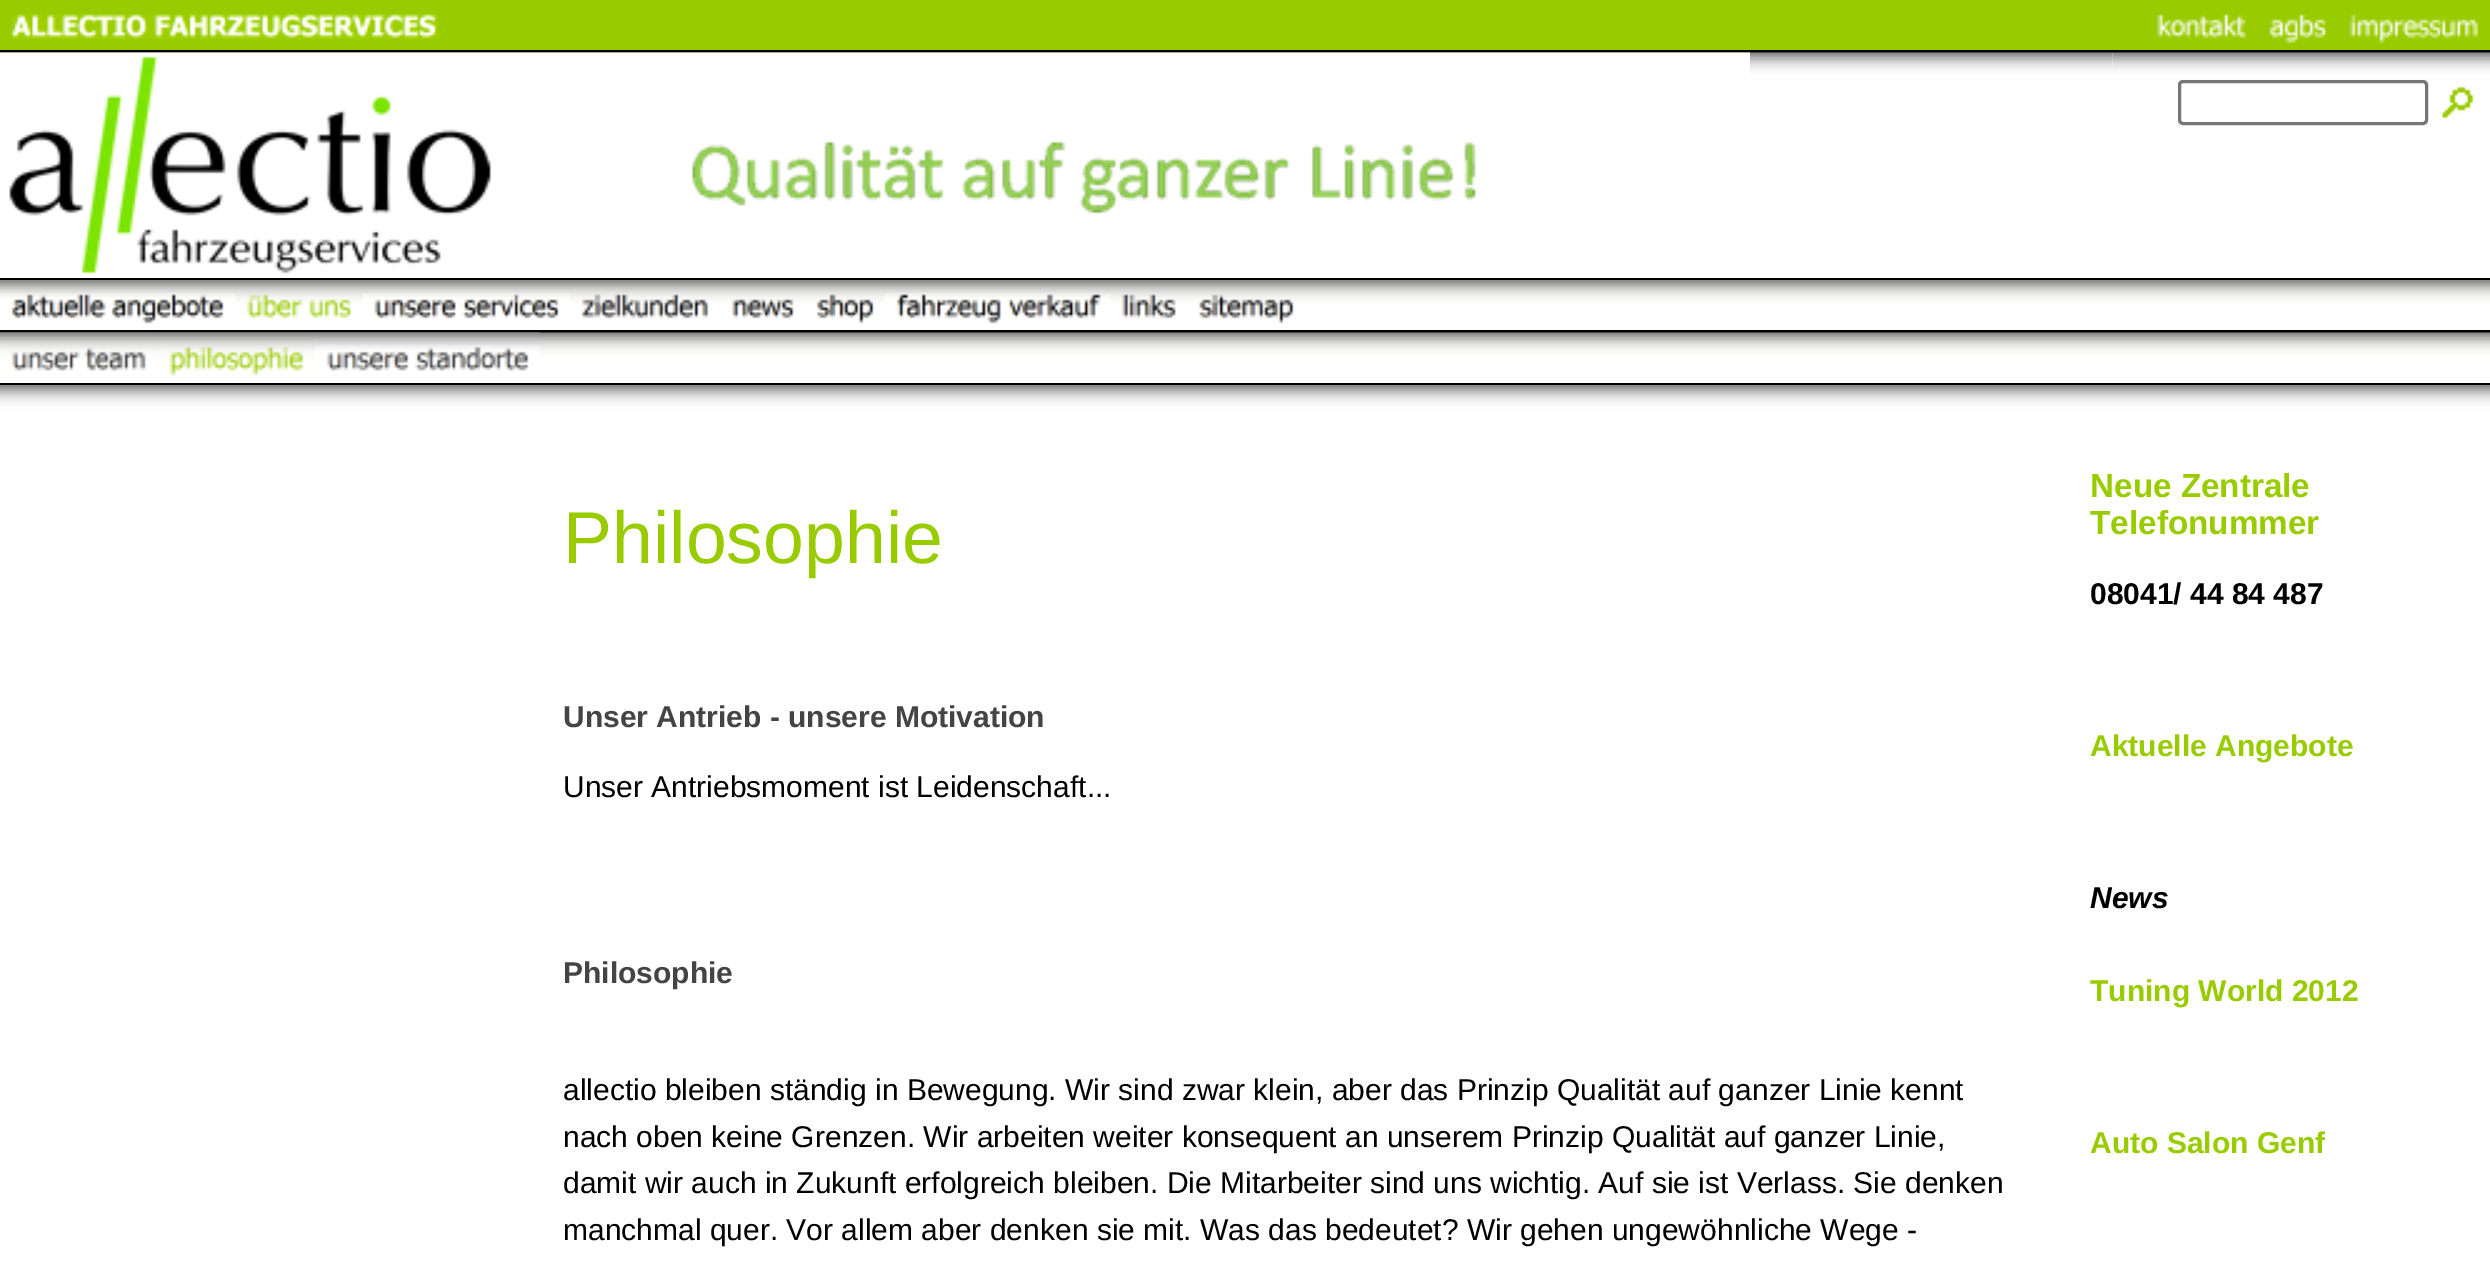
%!PS
<< /PageSize [2490 1272] >> setpagedevice
/rgb { 3 { 255 div 3 1 roll } repeat setrgbcolor } def
/font { [ exch dup neg 0 0 3 -1 roll 0 0 ] selectfont } def
/text { moveto show } def
/roundrect { 5 dict begin { /r /h /w /y /x } { exch def } forall
  x r add y moveto x w add y 2 copy h add r arct x w add y h add x 1 index r arct
  x y h add x y r arct x y 2 copy exch w add exch r arct closepath end } def
/picture { 5 dict begin { /h /w /y /x /name } { exch def } forall
  gsave x y translate w h scale
  w h 8 [w 0 0 h 0 0] name (r) file false 3 colorimage grestore end } def
0 1272 translate 1 -1 scale
4 setmiterlimit
255 255 255 rgb
0 0 2490 1272 rectfill
153 204 0 rgb
0 0 2490 50 rectfill
(img_01.rgb) 11 14 427 25 picture
(img_02.rgb) 2156 14 91 25 picture
(img_03.rgb) 2269 14 59 30 picture
(img_04.rgb) 2349 14 130 30 picture
0 0 0 rgb
0 50 2490 3 rectfill
(img_05.rgb) 0 52 2113 22 picture
(img_06.rgb) 0 52 1750 222 picture
(img_07.rgb) 2112 52 378 22 picture
118 118 118 rgb
3 setlinewidth
2179.5 81.5 247 42 3.5 roundrect stroke
(img_08.rgb) 2441 86 33 33 picture
0 0 0 rgb
0 278 2490 2 rectfill
(img_09.rgb) 0 280 2490 23 picture
(img_10.rgb) 0 293 235 31 picture
(img_11.rgb) 246 294 107 25 picture
(img_12.rgb) 363 293 207 26 picture
(img_13.rgb) 581 294 128 25 picture
(img_14.rgb) 731 299 65 20 picture
(img_15.rgb) 816 294 58 30 picture
(img_16.rgb) 885 293 225 31 picture
(img_17.rgb) 1121 294 55 25 picture
(img_18.rgb) 1199 294 95 30 picture
0 330 2490 3 rectfill
(img_19.rgb) 0 332 2490 23 picture
(img_20.rgb) 0 332 158 39 picture
(img_21.rgb) 157 332 158 44 picture
(img_22.rgb) 315 332 225 39 picture
0 383 2490 2 rectfill
(img_23.rgb) 0 385 2490 50 picture
/LiberationSans-Regular 73.5 font
153 204 0 rgb
(Philosophie) 563 563 text
/LiberationSans-Bold 30 font
68 68 68 rgb
(Unser Antrieb - unsere Motivation) 563 727 text
/LiberationSans-Regular 30 font
0 0 0 rgb
(Unser Antriebsmoment ist Leidenschaft...) 563 797 text
/LiberationSans-Bold 30 font
68 68 68 rgb
(Philosophie) 563 983 text
/LiberationSans-Regular 30 font
0 0 0 rgb
(allectio bleiben ständig in Bewegung. Wir sind zwar klein, aber das Prinzip Qualität auf ganzer Linie kennt) 563 1100 text
(nach oben keine Grenzen. Wir arbeiten weiter konsequent an unserem Prinzip Qualität auf ganzer Linie,) 563 1147 text
(damit wir auch in Zukunft erfolgreich bleiben. Die Mitarbeiter sind uns wichtig. Auf sie ist Verlass. Sie denken) 563 1193 text
(manchmal quer. Vor allem aber denken sie mit. Was das bedeutet? Wir gehen ungewöhnliche Wege -) 563 1240 text
/LiberationSans-Bold 33.25 font
153 204 0 rgb
(Neue Zentrale) 2090 497 text
(Telefonummer) 2090 534 text
/LiberationSans-Bold 30 font
0 0 0 rgb
(08041/ 44 84 487) 2090 604 text
153 204 0 rgb
(Aktuelle Angebote) 2090 756 text
/LiberationSans-BoldItalic 30 font
0 0 0 rgb
(News) 2090 908 text
/LiberationSans-Bold 30 font
153 204 0 rgb
(Tuning World 2012) 2090 1001 text
(Auto Salon Genf) 2090 1153 text
showpage
